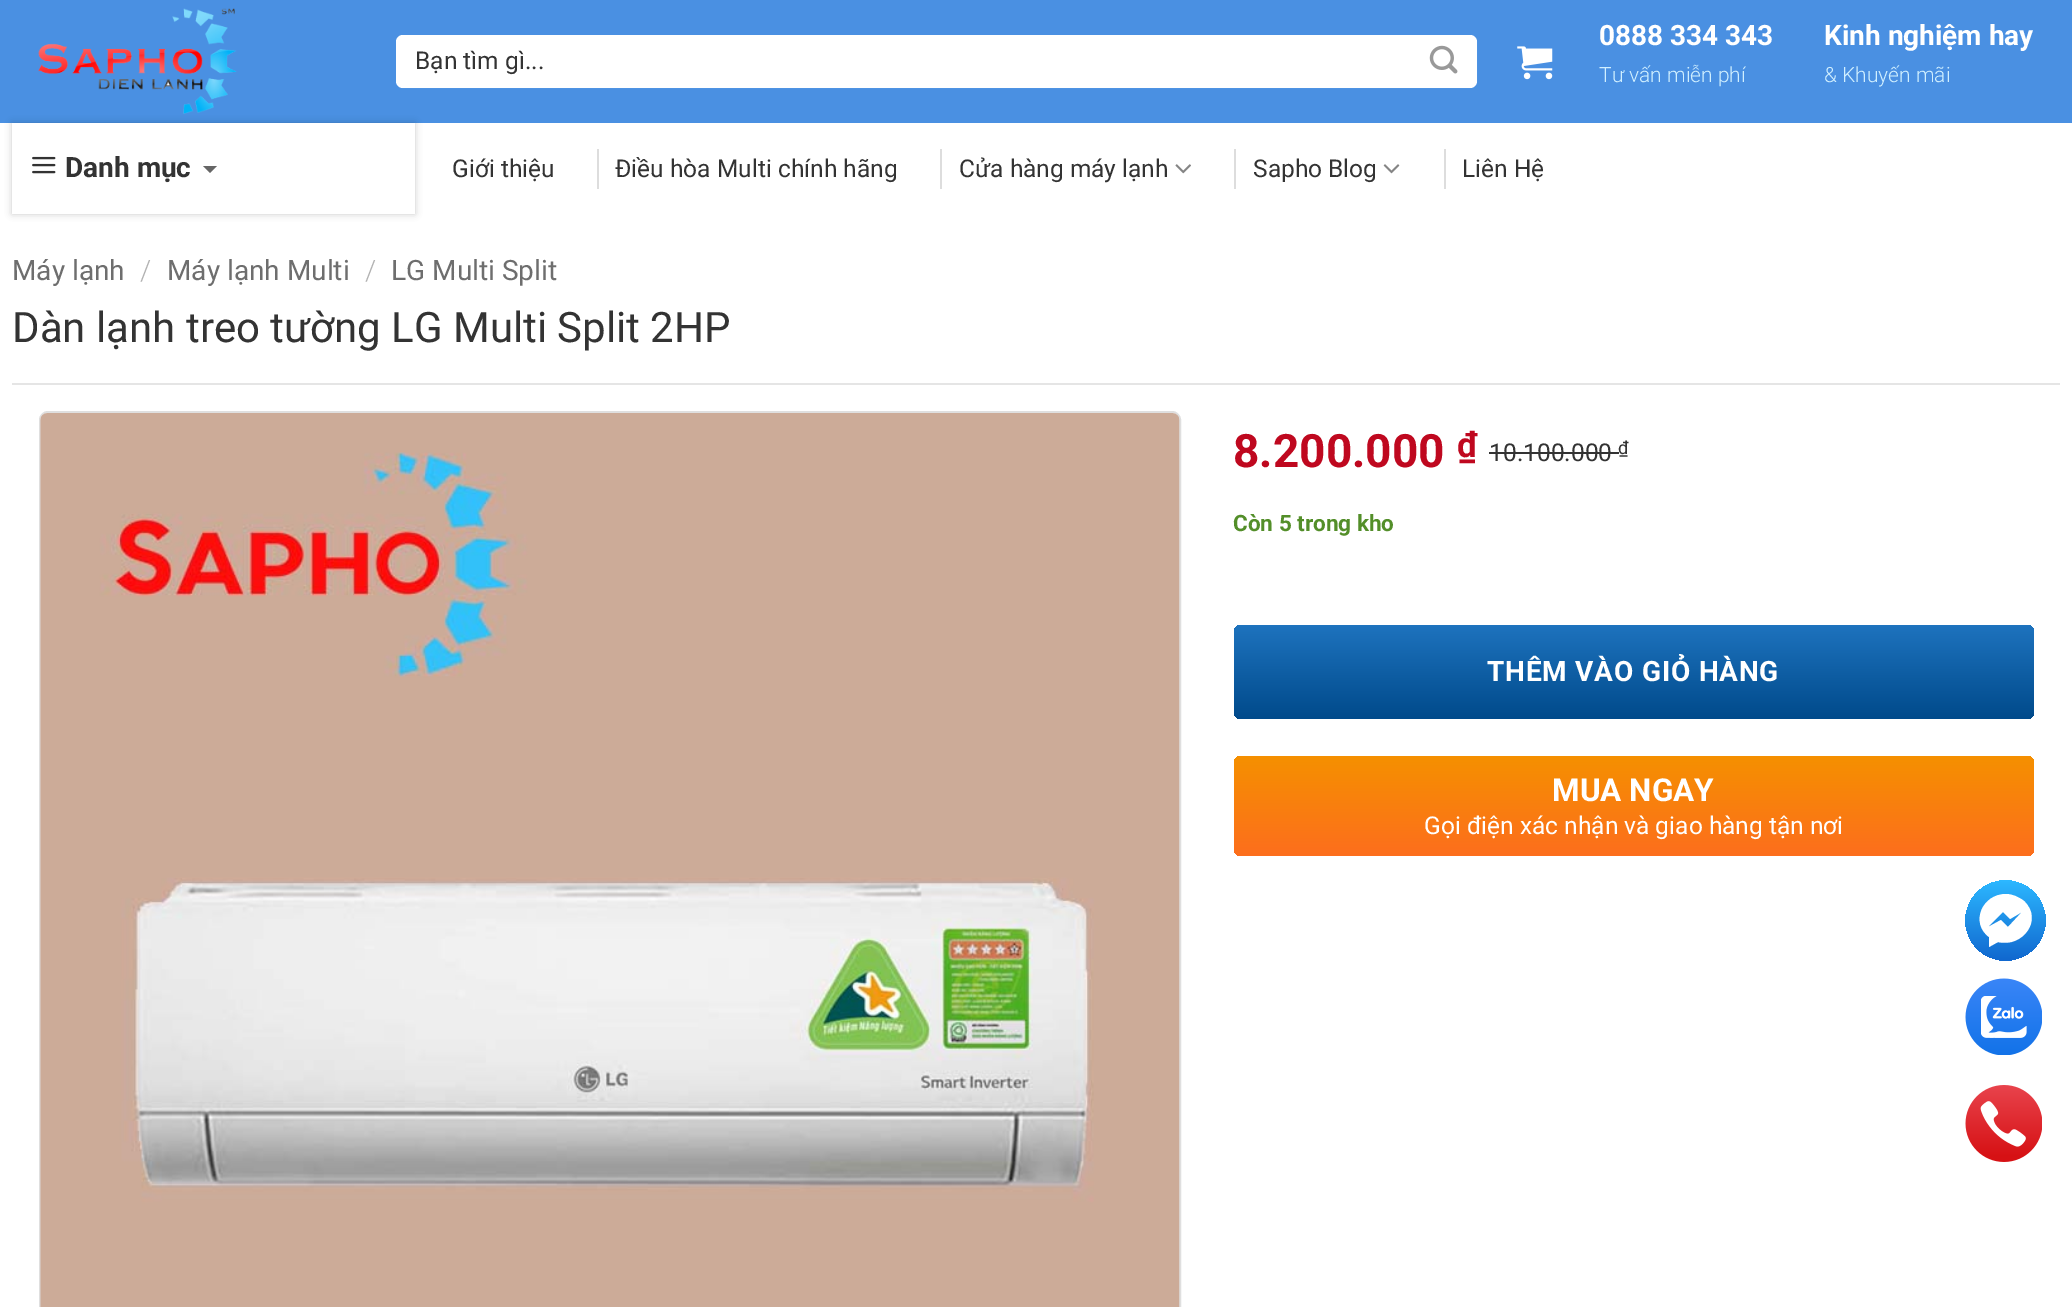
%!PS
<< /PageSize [2072 1307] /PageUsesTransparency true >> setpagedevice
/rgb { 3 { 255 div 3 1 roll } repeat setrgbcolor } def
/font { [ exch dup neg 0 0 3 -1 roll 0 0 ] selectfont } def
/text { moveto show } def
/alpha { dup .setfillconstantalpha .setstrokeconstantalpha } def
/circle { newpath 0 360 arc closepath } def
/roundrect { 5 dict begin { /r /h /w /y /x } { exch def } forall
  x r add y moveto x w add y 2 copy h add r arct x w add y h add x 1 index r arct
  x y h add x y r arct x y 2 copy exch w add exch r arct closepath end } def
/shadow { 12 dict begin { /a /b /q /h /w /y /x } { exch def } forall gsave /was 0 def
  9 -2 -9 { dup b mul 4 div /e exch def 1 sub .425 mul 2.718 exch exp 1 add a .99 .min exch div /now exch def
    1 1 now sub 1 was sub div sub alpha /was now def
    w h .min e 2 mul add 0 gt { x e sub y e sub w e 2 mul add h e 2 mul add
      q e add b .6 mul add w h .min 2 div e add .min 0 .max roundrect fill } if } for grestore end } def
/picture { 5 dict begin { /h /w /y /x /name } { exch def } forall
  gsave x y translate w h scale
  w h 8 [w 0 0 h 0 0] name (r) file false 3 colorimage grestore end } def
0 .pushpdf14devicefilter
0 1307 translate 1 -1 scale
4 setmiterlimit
255 255 255 rgb
0 0 2072 1307 rectfill
74 144 226 rgb
0 0 2072 123 rectfill
gsave
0 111 moveto 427 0 rlineto 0 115 rlineto -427 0 rlineto closepath 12 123 moveto 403 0 rlineto 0 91 rlineto -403 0 rlineto closepath eoclip newpath
0 0 0 rgb
12 123 403 91 0 3.5 0.2 shadow
grestore
(img_01.rgb) 38 8 199 106 picture
255 255 255 rgb
396 35 1081 53 7 roundrect fill
0.09 alpha
2 setlinewidth
397 36 1079 51 6 roundrect stroke
1 alpha
(img_02.rgb) 1429 45 29 29 picture
(img_03.rgb) 1517 46 36 34 picture
(img_04.rgb) 32 156 24 18 picture
102 102 102 rgb
203 166 moveto 14 0 rlineto -7 7 rlineto closepath fill
221 221 221 rgb
597 149 2 40 rectfill
940 149 2 40 rectfill
(img_05.rgb) 1175 164 16 10 picture
1234 149 2 40 rectfill
(img_06.rgb) 1383 164 17 10 picture
1444 149 2 40 rectfill
229 229 229 rgb
12 383 2048 2 rectfill
223 223 223 rgb
40 412 1140 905 8 roundrect stroke
(img_07.rgb) 40 413 1140 894 picture
51 51 51 rgb
1489 452 130 2 rectfill
gsave 1234 625 800 94 7 roundrect clip newpath
<< /ShadingType 2 /ColorSpace /DeviceRGB /Coords [1634 719 1634 625] /Extend [true true] /Function << /FunctionType 2 /Domain [0 1] /C0 [0 0.29 0.545] /C1 [0.118 0.451 0.745] /N 1 >> >> shfill grestore
gsave 1234 756 800 100 7 roundrect clip newpath
<< /ShadingType 2 /ColorSpace /DeviceRGB /Coords [1634 756 1634 856] /Extend [true true] /Function << /FunctionType 2 /Domain [0 1] /C0 [0.961 0.565 0] /C1 [0.992 0.431 0.114] /N 1 >> >> shfill grestore
gsave 2005.5 920.5 40 circle clip newpath
<< /ShadingType 2 /ColorSpace /DeviceRGB /Coords [2005 960 2005 881] /Extend [true true] /Function << /FunctionType 2 /Domain [0 1] /C0 [0.067 0.408 0.812] /C1 [0.173 0.718 1] /N 1 >> >> shfill grestore
255 255 255 rgb
2006 894 moveto -24 0 -36 29 -17 43 rcurveto 0 10 rlineto 9 -5 rlineto 24 6 46 -22 26 -41 rcurveto -5 -4 -12 -7 -18 -7 rcurveto closepath 2008 927 moveto -7 -7 rlineto -13 7 rlineto 15 -15 rlineto 7 7 rlineto 12 -7 rlineto closepath eofill
(img_08.rgb) 1965 978 77 77 picture
(img_09.rgb) 1965 1085 77 77 picture
/Roboto-Regular 24.5 font
51 51 51 rgb
(Bạn tìm gì...) 415 69 text
/Roboto-Bold 28 font
255 255 255 rgb
(0888 334 343) 1599 45 text
/Roboto-Light 21 font
208 239 255 rgb
(Tư vấn miễn phí) 1599 82 text
/Roboto-Bold 28 font
255 255 255 rgb
(Kinh nghiệm hay) 1824 45 text
/Roboto-Light 21 font
208 239 255 rgb
(& Khuyến mãi) 1824 82 text
/Roboto-Bold 28 font
51 51 51 rgb
(Danh mục) 65 177 text
/Roboto-Regular 24.5 font
(Giới thiệu) 452 177 text
(Điều hòa Multi chính hãng) 615 177 text
(Cửa hàng máy lạnh) 959 177 text
(Sapho Blog) 1253 177 text
(Liên Hệ) 1462 177 text
/Roboto-Regular 28 font
110 110 110 rgb
(Máy lạnh) 12 280 text
/Roboto-Light 28 font
178 178 178 rgb
(/) 140 280 text
/Roboto-Regular 28 font
110 110 110 rgb
(Máy lạnh Multi) 167 280 text
/Roboto-Light 28 font
178 178 178 rgb
(/) 365 280 text
/Roboto-Regular 28 font
110 110 110 rgb
(LG Multi Split) 391 280 text
/Roboto-Regular 42 font
51 51 51 rgb
(Dàn lạnh treo tường LG Multi Split 2HP) 12 342 text
/Roboto-Bold 46 font
191 8 31 rgb
(8.200.000) 1233 467 text
/Roboto-Bold 35 font
(₫) 1457 457 text
/Roboto-Regular 24.5 font
51 51 51 rgb
(10.100.000) 1489 461 text
/Roboto-Regular 18 font
(₫) 1618 454 text
/Roboto-Bold 22.5 font
83 142 41 rgb
(Còn 5 trong kho) 1233 531 text
/Roboto-Bold 28 font
255 255 255 rgb
1487 681 moveto 0.8 0 (THÊM VÀO GIỎ HÀNG) ashow
/Roboto-Bold 31.5 font
(MUA NGAY) 1552 801 text
/Roboto-Regular 24.5 font
(Gọi điện xác nhận và giao hàng tận nơi) 1424 834 text
.poppdf14devicefilter showpage
